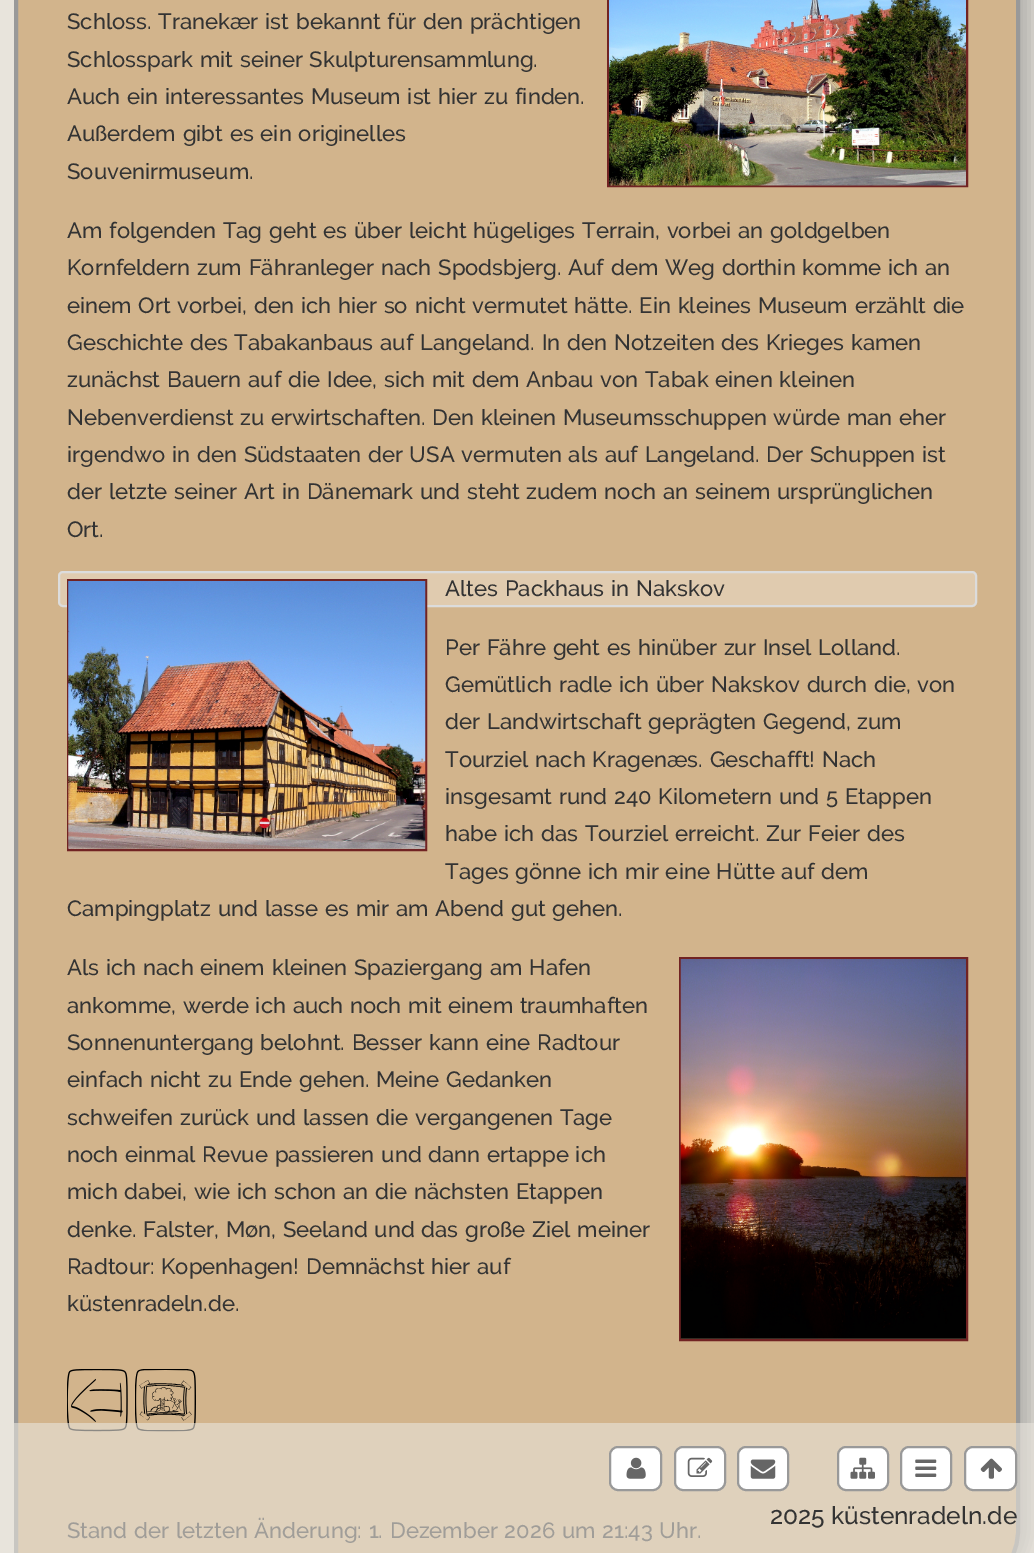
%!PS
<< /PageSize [1034 1553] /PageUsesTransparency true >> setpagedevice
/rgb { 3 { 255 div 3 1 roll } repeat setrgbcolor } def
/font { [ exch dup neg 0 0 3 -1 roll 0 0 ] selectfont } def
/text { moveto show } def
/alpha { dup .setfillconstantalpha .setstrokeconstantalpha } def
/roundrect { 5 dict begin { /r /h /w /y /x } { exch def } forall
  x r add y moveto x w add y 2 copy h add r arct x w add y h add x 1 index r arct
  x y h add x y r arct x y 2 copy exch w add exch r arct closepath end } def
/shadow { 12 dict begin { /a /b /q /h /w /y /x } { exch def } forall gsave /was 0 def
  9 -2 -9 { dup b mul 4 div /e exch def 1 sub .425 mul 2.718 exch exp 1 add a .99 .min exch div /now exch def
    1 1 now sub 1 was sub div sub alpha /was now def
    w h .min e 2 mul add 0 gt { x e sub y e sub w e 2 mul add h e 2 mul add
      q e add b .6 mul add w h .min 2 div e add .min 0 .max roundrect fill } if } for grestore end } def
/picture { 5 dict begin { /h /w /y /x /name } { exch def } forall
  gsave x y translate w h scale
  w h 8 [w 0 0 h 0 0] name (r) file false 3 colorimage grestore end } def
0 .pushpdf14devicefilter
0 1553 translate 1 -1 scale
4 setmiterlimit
232 228 220 rgb
0 0 1034 1553 rectfill
133 133 133 rgb
33 -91 1000 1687 67 8 0.5 shadow
210 180 140 rgb
16 -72 moveto 1002 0 rlineto 0 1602 rlineto 0 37.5 -30.5 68 -68 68 rcurveto -901 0 rlineto -18 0 -33 -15 -33 -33 rcurveto closepath gsave fill grestore
153 153 153 rgb
4 setlinewidth
stroke
113 35 35 rgb
2 setlinewidth
608 -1 359 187 rectstroke
(img_01.rgb) 609 0 357 186 picture
224 203 175 rgb
59 572 917 34 4 roundrect gsave fill grestore
220 220 220 rgb
stroke
113 35 35 rgb
68 580 358 270 rectstroke
(img_02.rgb) 68 581 358 268 picture
680 958 287 382 rectstroke
(img_03.rgb) 680 959 286 380 picture
(img_04.rgb) 67 1369 61 63 picture
(img_05.rgb) 135 1369 61 63 picture
/Raleway-Medium 22.05 font
51 51 51 rgb
67 29 moveto 1.25 0 32 (Schloss. Tranekær ist bekannt für den prächtigen) widthshow
67 67 moveto 1.25 0 32 (Schlosspark mit seiner Skulpturensammlung.) widthshow
67 104 moveto 1.25 0 32 (Auch ein interessantes Museum ist hier zu finden.) widthshow
67 141 moveto 1.25 0 32 (Außerdem gibt es ein originelles) widthshow
(Souvenirmuseum.) 67 179 text
67 238 moveto 1.25 0 32 (Am folgenden Tag geht es über leicht hügeliges Terrain, vorbei an goldgelben) widthshow
67 275 moveto 1.25 0 32 (Kornfeldern zum Fähranleger nach Spodsbjerg. Auf dem Weg dorthin komme ich an) widthshow
67 313 moveto 1.25 0 32 (einem Ort vorbei, den ich hier so nicht vermutet hätte. Ein kleines Museum erzählt die) widthshow
67 350 moveto 1.25 0 32 (Geschichte des Tabakanbaus auf Langeland. In den Notzeiten des Krieges kamen) widthshow
67 387 moveto 1.25 0 32 (zunächst Bauern auf die Idee, sich mit dem Anbau von Tabak einen kleinen) widthshow
67 425 moveto 1.25 0 32 (Nebenverdienst zu erwirtschaften. Den kleinen Museumsschuppen würde man eher) widthshow
67 462 moveto 1.25 0 32 (irgendwo in den Südstaaten der USA vermuten als auf Langeland. Der Schuppen ist) widthshow
67 499 moveto 1.25 0 32 (der letzte seiner Art in Dänemark und steht zudem noch an seinem ursprünglichen) widthshow
(Ort.) 67 537 text
445 596 moveto 1.25 0 32 (Altes Packhaus in Nakskov) widthshow
445 655 moveto 1.25 0 32 (Per Fähre geht es hinüber zur Insel Lolland.) widthshow
445 692 moveto 1.25 0 32 (Gemütlich radle ich über Nakskov durch die, von) widthshow
445 729 moveto 1.25 0 32 (der Landwirtschaft geprägten Gegend, zum) widthshow
445 767 moveto 1.25 0 32 (Tourziel nach Kragenæs. Geschafft! Nach) widthshow
445 804 moveto 1.25 0 32 (insgesamt rund 240 Kilometern und 5 Etappen) widthshow
445 841 moveto 1.25 0 32 (habe ich das Tourziel erreicht. Zur Feier des) widthshow
445 879 moveto 1.25 0 32 (Tages gönne ich mir eine Hütte auf dem) widthshow
67 916 moveto 1.25 0 32 (Campingplatz und lasse es mir am Abend gut gehen.) widthshow
67 975 moveto 1.25 0 32 (Als ich nach einem kleinen Spaziergang am Hafen) widthshow
67 1013 moveto 1.25 0 32 (ankomme, werde ich auch noch mit einem traumhaften) widthshow
67 1050 moveto 1.25 0 32 (Sonnenuntergang belohnt. Besser kann eine Radtour) widthshow
67 1087 moveto 1.25 0 32 (einfach nicht zu Ende gehen. Meine Gedanken) widthshow
67 1125 moveto 1.25 0 32 (schweifen zurück und lassen die vergangenen Tage) widthshow
67 1162 moveto 1.25 0 32 (noch einmal Revue passieren und dann ertappe ich) widthshow
67 1199 moveto 1.25 0 32 (mich dabei, wie ich schon an die nächsten Etappen) widthshow
67 1237 moveto 1.25 0 32 (denke. Falster, Møn, Seeland und das große Ziel meiner) widthshow
67 1274 moveto 1.25 0 32 (Radtour: Kopenhagen! Demnächst hier auf) widthshow
(küstenradeln.de.) 67 1311 text
67 1538 moveto 1.25 0 32 (Stand der letzten Änderung: 1. Dezember 2026 um 21:43 Uhr.) widthshow
0.6 alpha
232 228 220 rgb
14 1423 1020 130 rectfill
1 alpha
255 255 255 rgb
610 1447 51 43 8 roundrect gsave fill grestore
153 153 153 rgb
stroke
(img_06.rgb) 626 1457 20 22 picture
255 255 255 rgb
675 1447 50 43 8 roundrect gsave fill grestore
153 153 153 rgb
stroke
(img_07.rgb) 687 1457 26 20 picture
255 255 255 rgb
738 1447 50 43 8 roundrect gsave fill grestore
153 153 153 rgb
stroke
(img_08.rgb) 750 1459 26 20 picture
255 255 255 rgb
838 1447 50 43 8 roundrect gsave fill grestore
153 153 153 rgb
stroke
(img_09.rgb) 850 1457 25 22 picture
255 255 255 rgb
901 1447 50 43 8 roundrect gsave fill grestore
153 153 153 rgb
stroke
(img_10.rgb) 915 1459 22 18 picture
255 255 255 rgb
965 1447 51 43 8 roundrect gsave fill grestore
153 153 153 rgb
stroke
(img_11.rgb) 980 1458 22 21 picture
/Raleway-Medium 24.5 font
51 51 51 rgb
(2025 küstenradeln.de) 770 1524 text
.poppdf14devicefilter showpage
